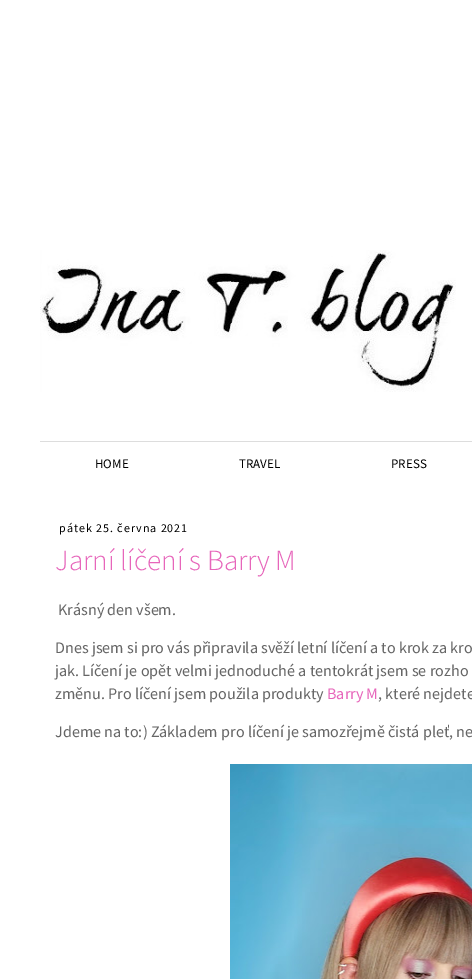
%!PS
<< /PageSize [472 979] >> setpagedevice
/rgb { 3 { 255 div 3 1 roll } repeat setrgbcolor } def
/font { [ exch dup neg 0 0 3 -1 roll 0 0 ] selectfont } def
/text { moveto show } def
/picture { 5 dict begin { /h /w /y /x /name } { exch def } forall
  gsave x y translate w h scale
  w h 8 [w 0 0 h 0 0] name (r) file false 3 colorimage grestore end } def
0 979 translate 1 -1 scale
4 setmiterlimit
255 255 255 rgb
0 0 472 979 rectfill
(img_01.rgb) 40 250 416 142 picture
221 221 221 rgb
40 441 432 1 rectfill
(img_02.rgb) 230 764 242 215 picture
/SourceSansPro-Regular 13 font
0 0 0 rgb
(HOME) 95 468 text
(TRAVEL) 239 468 text
(PRESS) 391 468 text
/SourceSansPro-Regular 12 font
59 532 moveto 1 0 (pátek 25. června 2021) ashow
/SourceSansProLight-Light 29.25 font
231 102 187 rgb
(Jarní líčení s Barry M) 55 570 text
/SourceSansPro-Regular 16.1 font
102 102 102 rgb
(Krásný den všem.) 58 615 text
(Dnes jsem si pro vás připravila svěží letní líčení a to krok za kro) 55 653 text
(jak. Líčení je opět velmi jednoduché a tentokrát jsem se rozho) 55 676 text
(změnu. Pro líčení jsem použila produkty) 55 699 text
231 102 187 rgb
(Barry M) 327 699 text
102 102 102 rgb
(, které nejdete) 378 699 text
(Jdeme na to:\) Základem pro líčení je samozřejmě čistá pleť, ne) 55 737 text
showpage
